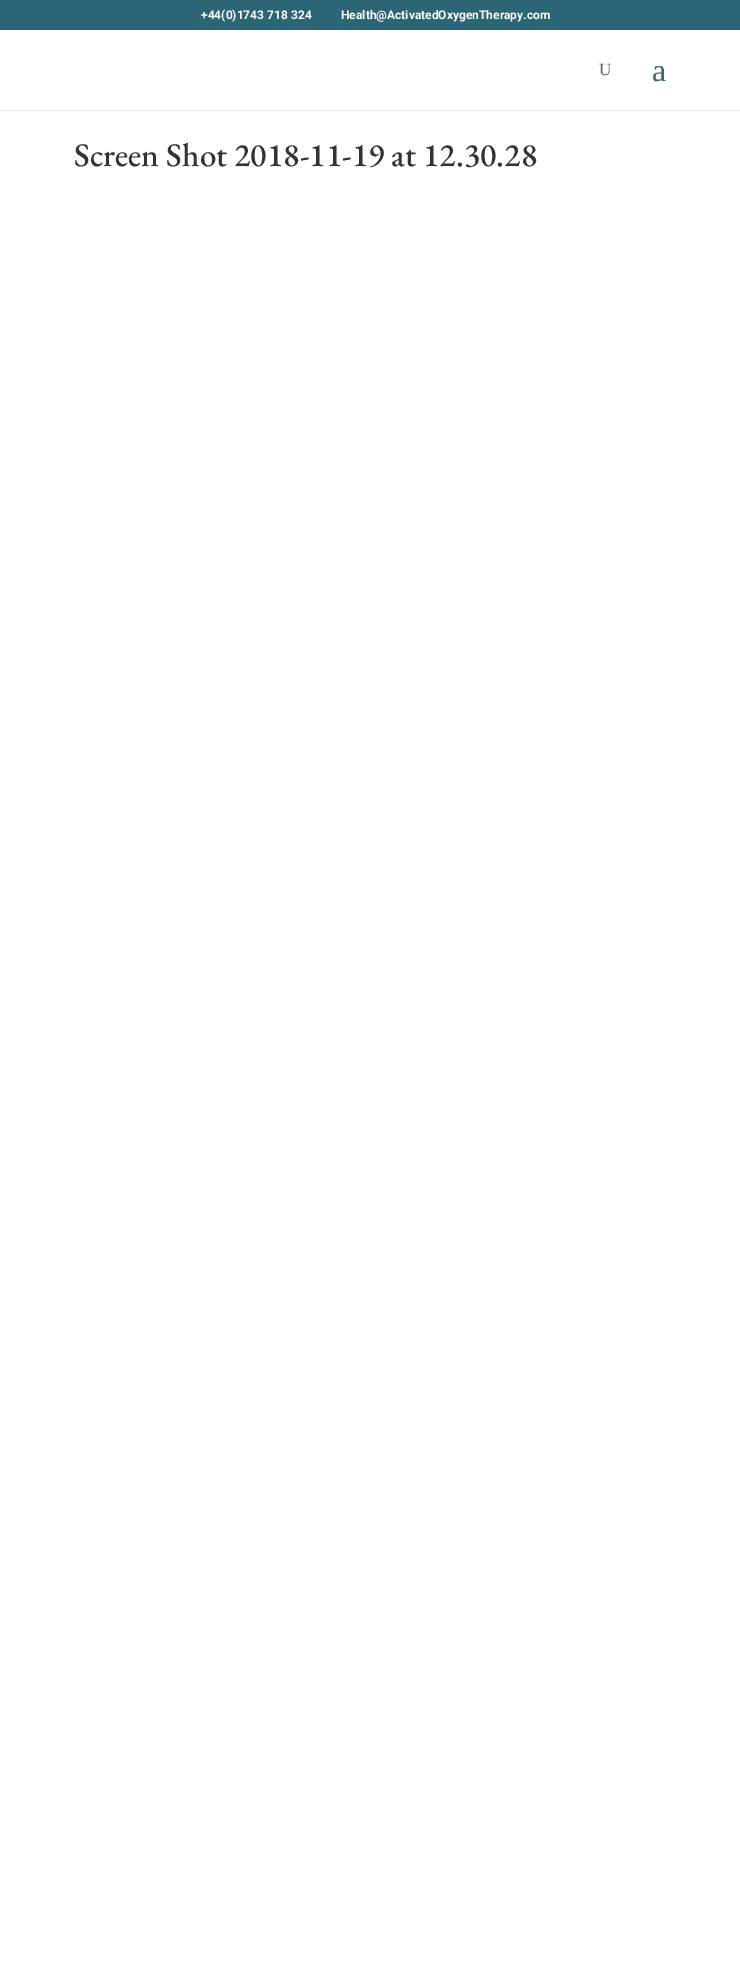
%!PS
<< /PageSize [740 1979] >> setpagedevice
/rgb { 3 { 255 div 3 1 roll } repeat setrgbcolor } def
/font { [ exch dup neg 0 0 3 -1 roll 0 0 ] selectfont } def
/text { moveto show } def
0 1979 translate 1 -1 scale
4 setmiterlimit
255 255 255 rgb
0 0 740 1979 rectfill
44 102 118 rgb
0 0 740 30 rectfill
230 230 230 rgb
0 110 740 1 rectfill
/Roboto-Bold 12 font
255 255 255 rgb
(+44\(0\)1743 718 324) 201 19 text
(Health@ActivatedOxygenTherapy.com) 341 19 text
/LiberationSerif-Regular 17 font
102 102 102 rgb
(U) 599 75 text
/LiberationSerif-Regular 32 font
59 101 116 rgb
(a) 652 81 text
/EBGaramond-Medium 33 font
51 51 51 rgb
(Screen Shot 2018-11-19 at 12.30.28) 74 166 text
showpage
